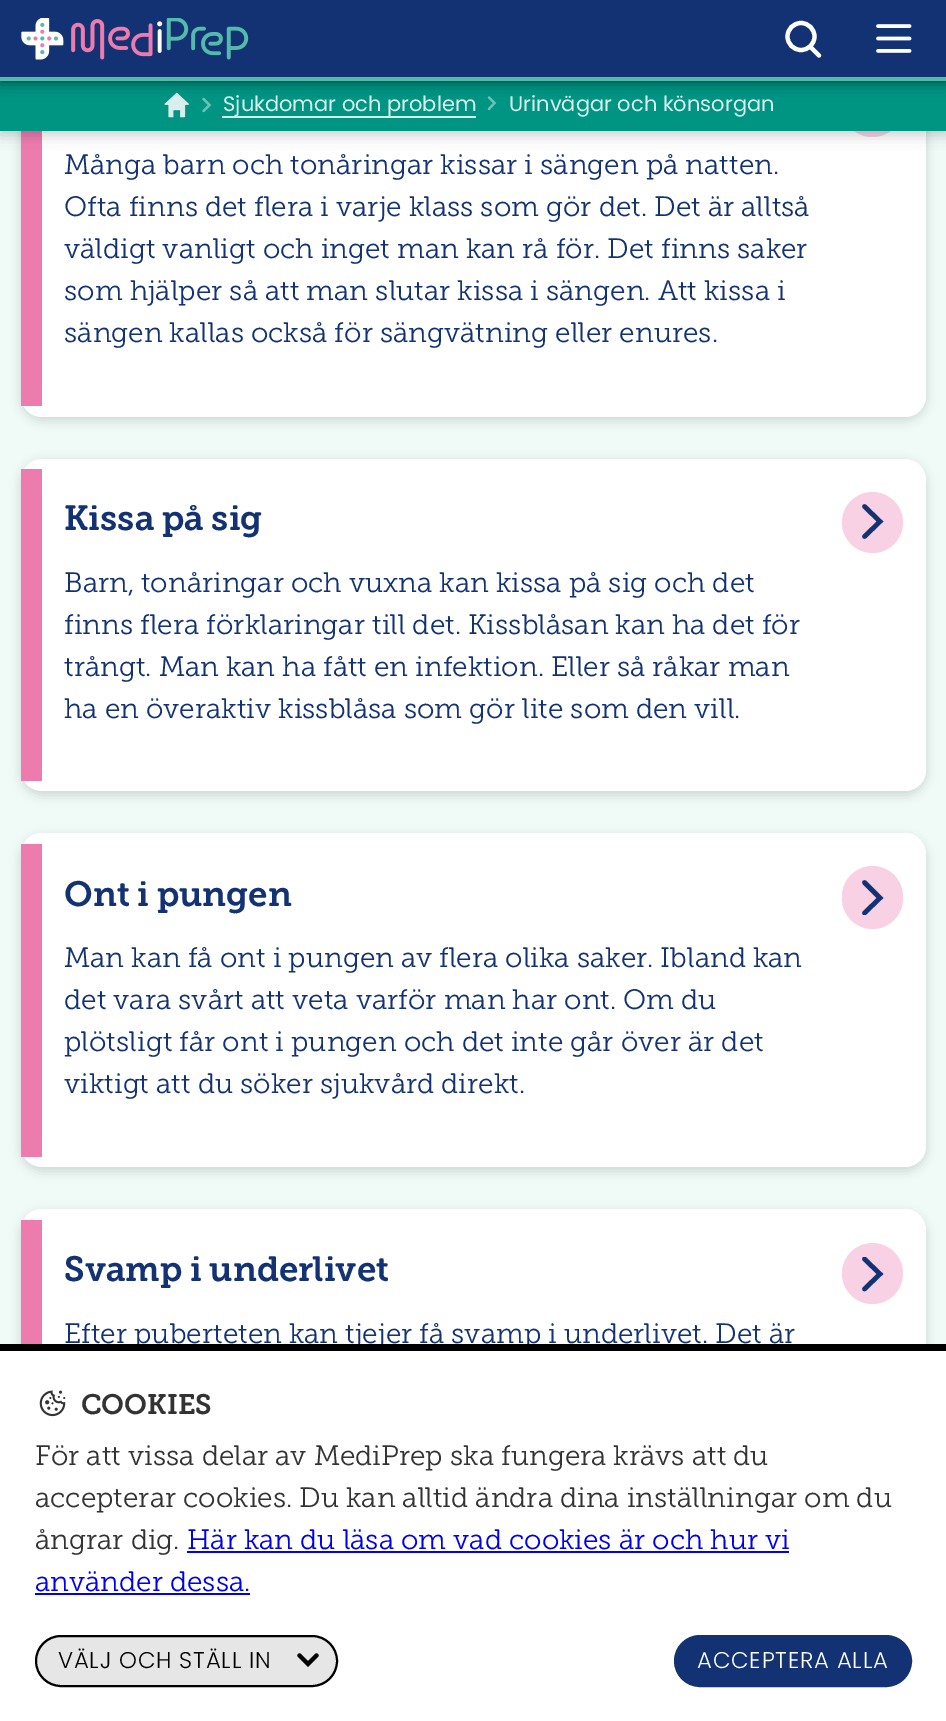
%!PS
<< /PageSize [946 1721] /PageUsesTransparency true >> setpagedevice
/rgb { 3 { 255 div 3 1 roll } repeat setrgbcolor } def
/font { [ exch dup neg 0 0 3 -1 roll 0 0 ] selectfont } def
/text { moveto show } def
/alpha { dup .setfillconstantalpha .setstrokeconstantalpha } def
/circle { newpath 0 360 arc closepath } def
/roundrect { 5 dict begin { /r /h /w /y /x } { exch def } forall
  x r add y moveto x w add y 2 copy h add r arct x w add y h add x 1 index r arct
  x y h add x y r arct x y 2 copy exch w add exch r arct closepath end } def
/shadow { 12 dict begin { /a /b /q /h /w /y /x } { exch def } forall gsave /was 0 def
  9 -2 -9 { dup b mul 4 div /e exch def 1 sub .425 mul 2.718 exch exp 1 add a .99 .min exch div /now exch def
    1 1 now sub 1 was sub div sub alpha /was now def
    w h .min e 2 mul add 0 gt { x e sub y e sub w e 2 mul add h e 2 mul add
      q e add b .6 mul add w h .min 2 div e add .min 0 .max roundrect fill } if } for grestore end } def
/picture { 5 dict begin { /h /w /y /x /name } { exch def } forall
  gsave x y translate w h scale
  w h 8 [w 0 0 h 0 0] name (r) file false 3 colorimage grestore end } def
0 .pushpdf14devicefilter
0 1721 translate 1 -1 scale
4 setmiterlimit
240 250 247 rgb
0 0 946 1721 rectfill
0 0 0 rgb
21 44 905 376 21 5.5 0.15 shadow
255 255 255 rgb
21 40 905 377 21 roundrect fill
238 123 174 rgb
21 131 21 275 rectfill
249 209 228 rgb
842 74 61 63 30.5 roundrect fill
0 0 0 rgb
0 81 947 54 0 7 0.2 shadow
0 148 131 rgb
0 81 946 50 rectfill
(img_03.rgb) 164 92 25 26 picture
108 193 184 rgb
2.2 setlinewidth
1 setlinecap
203.5 99 moveto 6 6 rlineto -6 6 rlineto stroke
489 97.5 moveto 5.5 5.5 rlineto -5.5 6 rlineto stroke
0 0 0 rgb
0 4 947 77 0 7 0.6 shadow
84 187 171 rgb
0 77 moveto 0 4 rlineto 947 0 rlineto 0 -77 rlineto 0 73 rlineto closepath fill
18 50 116 rgb
0 0 946 77 rectfill
(img_01.rgb) 21 18 228 42 picture
255 255 255 rgb
4.2 setlinewidth
0 setlinecap
801 36.5 13.5 circle stroke
1 setlinecap
811.5 48 moveto 7.5 7.5 rlineto stroke
(img_02.rgb) 876 24 36 29 picture
217 239 236 rgb
222 116 254 2 rectfill
0 0 0 rgb
21 462 905 333 21 5.5 0.15 shadow
255 255 255 rgb
21 459 905 332 21 roundrect fill
238 123 174 rgb
21 469 21 312 rectfill
249 209 228 rgb
872.5 522.5 30.5 circle fill
18 50 116 rgb
4.6 setlinewidth
864.5 506.5 moveto 15.5 15 rlineto -15.5 15 rlineto stroke
0 0 0 rgb
21 837 905 334 21 5.5 0.15 shadow
255 255 255 rgb
21 833 905 334 21 roundrect fill
238 123 174 rgb
21 844 21 313 rectfill
249 209 228 rgb
842 866 61 63 30.5 roundrect fill
gsave
847 880 51 35 rectclip
18 50 116 rgb
864.5 882.5 moveto 15.5 15.5 rlineto -15.5 15 rlineto stroke
grestore
0 0 0 rgb
21 1213 905 290 21 5.5 0.15 shadow
255 255 255 rgb
21 1209 905 291 21 roundrect fill
238 123 174 rgb
21 1220 21 124 rectfill
249 209 228 rgb
872.5 1273.5 30.5 circle fill
gsave
847 1257 51 35 rectclip
18 50 116 rgb
864.5 1259 moveto 15.5 15 rlineto -15.5 15 rlineto stroke
grestore
255 255 255 rgb
0 1351 946 370 rectfill
(img_04.rgb) 39 1390 27 27 picture
0 0 238 rgb
187 1551 602 2 rectfill
35 1593 215 2 rectfill
230 230 230 rgb
36 1636 301 50 25 roundrect gsave fill grestore
0 0 0 rgb
2 setlinewidth
0 setlinecap
stroke
gsave
318.5 1653 moveto 0 15.5 rlineto -21 0 rlineto 0 -15.5 rlineto closepath clip newpath
4.2 setlinewidth
1 setlinecap
316.5 1655.5 moveto -8.5 8.5 rlineto -8.5 -8.5 rlineto stroke
grestore
18 50 116 rgb
675 1636 236 50 25 roundrect gsave fill grestore
stroke
/Poppins-Regular 21 font
217 239 236 rgb
(Sjukdomar och problem) 223 111 text
(Urinvägar och könsorgan) 509 111 text
/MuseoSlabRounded-Light 28 font
18 50 116 rgb
(Många barn och tonåringar kissar i sängen på natten.) 64 174 text
(Ofta finns det flera i varje klass som gör det. Det är alltså) 64 216 text
(väldigt vanligt och inget man kan rå för. Det finns saker) 64 258 text
(som hjälper så att man slutar kissa i sängen. Att kissa i) 64 300 text
(sängen kallas också för sängvätning eller enures.) 64 342 text
/MuseoSlabRounded-SemiBold 35 font
(Kissa på sig) 64 530 text
/MuseoSlabRounded-Light 28 font
(Barn, tonåringar och vuxna kan kissa på sig och det) 64 592 text
(finns flera förklaringar till det. Kissblåsan kan ha det för) 64 634 text
(trångt. Man kan ha fått en infektion. Eller så råkar man) 64 676 text
(ha en överaktiv kissblåsa som gör lite som den vill.) 64 718 text
/MuseoSlabRounded-SemiBold 35 font
(Ont i pungen) 64 906 text
/MuseoSlabRounded-Light 28 font
(Man kan få ont i pungen av flera olika saker. Ibland kan) 64 967 text
(det vara svårt att veta varför man har ont. Om du) 64 1009 text
(plötsligt får ont i pungen och det inte går över är det) 64 1051 text
(viktigt att du söker sjukvård direkt.) 64 1093 text
/MuseoSlabRounded-SemiBold 35 font
(Svamp i underlivet) 64 1281 text
/MuseoSlabRounded-Light 28 font
(Efter puberteten kan tjejer få svamp i underlivet. Det är) 64 1343 text
0 0 0 rgb
0 1344 946 7 rectfill
/MuseoSlabRounded-SemiBold 28 font
51 51 51 rgb
(COOKIES) 81 1414 text
/MuseoSlabRounded-Light 28 font
(För att vissa delar av MediPrep ska fungera krävs att du) 35 1465 text
(accepterar cookies. Du kan alltid ändra dina inställningar om du) 35 1507 text
(ångrar dig.) 35 1549 text
0 0 238 rgb
(Här kan du läsa om vad cookies är och hur vi) 187 1549 text
(använder dessa.) 35 1591 text
/Poppins-Light 22.75 font
0 0 0 rgb
58 1668 moveto 0.8 0 (VÄLJ OCH STÄLL IN) ashow
255 255 255 rgb
697 1668 moveto 0.8 0 (ACCEPTERA ALLA) ashow
.poppdf14devicefilter showpage
